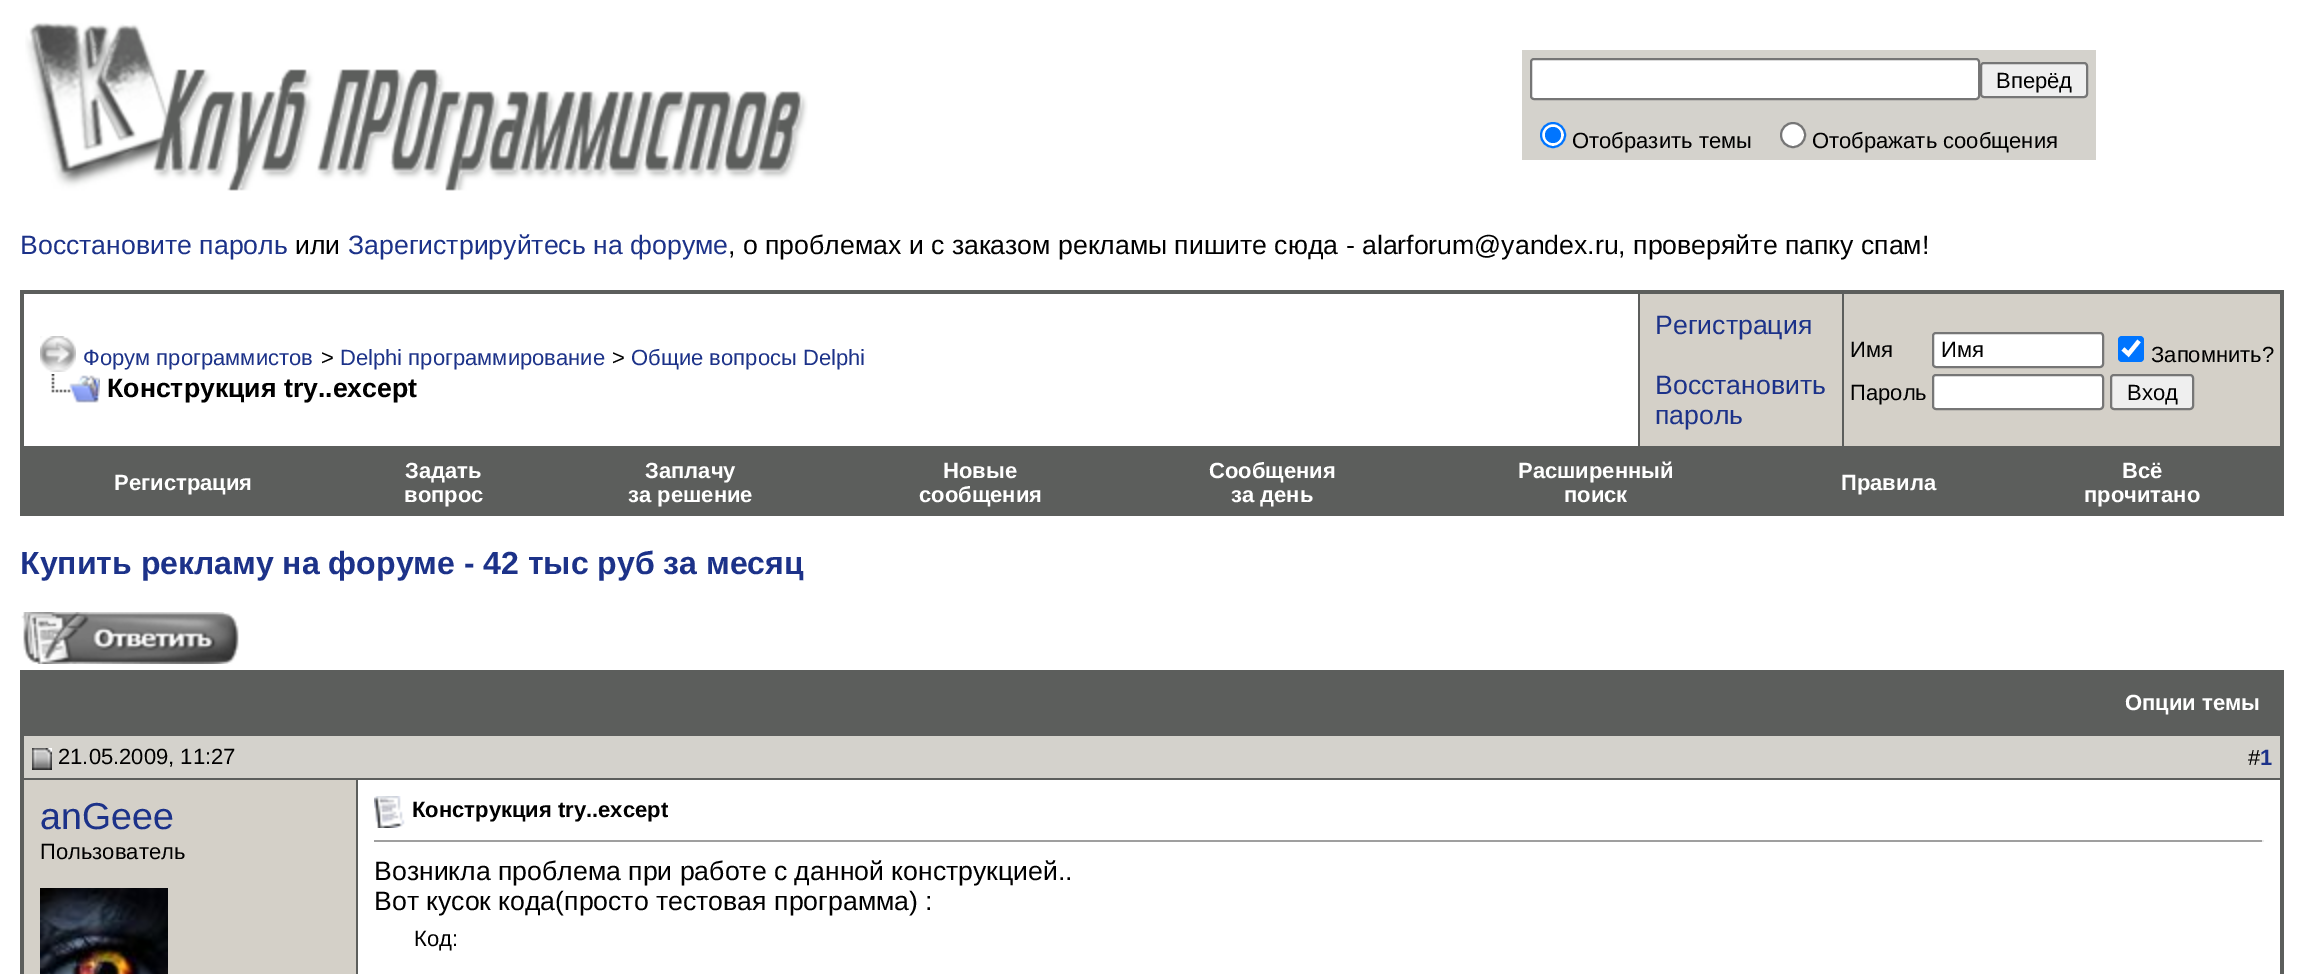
%!PS
<< /PageSize [2303 974] >> setpagedevice
/rgb { 3 { 255 div 3 1 roll } repeat setrgbcolor } def
/font { [ exch dup neg 0 0 3 -1 roll 0 0 ] selectfont } def
/text { moveto show } def
/circle { newpath 0 360 arc closepath } def
/roundrect { 5 dict begin { /r /h /w /y /x } { exch def } forall
  x r add y moveto x w add y 2 copy h add r arct x w add y h add x 1 index r arct
  x y h add x y r arct x y 2 copy exch w add exch r arct closepath end } def
/picture { 5 dict begin { /h /w /y /x /name } { exch def } forall
  gsave x y translate w h scale
  w h 8 [w 0 0 h 0 0] name (r) file false 3 colorimage grestore end } def
0 974 translate 1 -1 scale
4 setmiterlimit
255 255 255 rgb
0 0 2303 974 rectfill
(img_01.rgb) 25 22 783 169 picture
212 210 204 rgb
1522 50 574 110 rectfill
255 255 255 rgb
1531 59 448 40 3 roundrect gsave fill grestore
118 118 118 rgb
2 setlinewidth
stroke
239 239 239 rgb
1981 63 106 34 3 roundrect gsave fill grestore
118 118 118 rgb
stroke
255 255 255 rgb
1553 135 12 circle gsave fill grestore
0 117 255 rgb
stroke
1553 135 8 circle fill
255 255 255 rgb
1793 135 12 circle gsave fill grestore
118 118 118 rgb
stroke
92 94 92 rgb
20 290 2264 160 rectfill
255 255 255 rgb
24 294 1614 152 rectfill
(img_02.rgb) 40 336 36 36 picture
(img_03.rgb) 51 374 49 29 picture
212 208 200 rgb
1640 294 202 152 rectfill
1844 294 436 152 rectfill
255 255 255 rgb
1933 333 170 34 3 roundrect gsave fill grestore
118 118 118 rgb
stroke
0 117 255 rgb
2118 336 26 26 4 roundrect fill
255 255 255 rgb
4.2 setlinewidth
2123 349 moveto 5.5 5 rlineto 10.5 -13 rlineto stroke
1933 375 170 34 3 roundrect gsave fill grestore
118 118 118 rgb
2 setlinewidth
stroke
239 239 239 rgb
2111 375 82 34 3 roundrect gsave fill grestore
118 118 118 rgb
stroke
92 94 92 rgb
22 450 2260 64 rectfill
2282 450 2 66 rectfill
20 514 2264 2 rectfill
20 450 2 66 rectfill
(img_04.rgb) 21 612 218 52 picture
22 672 2260 60 rectfill
20 670 2264 2 rectfill
2282 670 2 62 rectfill
20 670 2 62 rectfill
20 732 2264 242 rectfill
212 210 204 rgb
24 736 2256 42 rectfill
(img_05.rgb) 32 748 20 22 picture
212 208 200 rgb
24 780 332 194 rectfill
(img_06.rgb) 40 888 128 86 picture
255 255 255 rgb
358 780 1922 194 rectfill
(img_07.rgb) 374 796 31 32 picture
159 159 159 rgb
374 840 1890 2 rectfill
238 238 238 rgb
2262 840 2 2 rectfill
/LiberationSans-Regular 22 font
0 0 0 rgb
(Вперёд) 1996 88 text
(Отобразить темы) 1572 148 text
(Отображать сообщения) 1812 148 text
/LiberationSans-Regular 26.65 font
28 50 137 rgb
(Восстановите пароль) 20 254 text
0 0 0 rgb
(или) 295 254 text
28 50 137 rgb
(Зарегистрируйтесь на форуме) 348 254 text
0 0 0 rgb
(, о проблемах и с заказом рекламы пишите сюда - alarforum@yandex.ru, проверяйте папку спам!) 728 254 text
/LiberationSans-Regular 22 font
28 50 137 rgb
(Форум программистов) 83 365 text
0 0 0 rgb
(>) 321 365 text
28 50 137 rgb
(Delphi программирование) 340 365 text
0 0 0 rgb
(>) 612 365 text
28 50 137 rgb
(Общие вопросы Delphi) 631 365 text
/LiberationSans-Bold 26.65 font
0 0 0 rgb
(Конструкция try..except) 107 397 text
/LiberationSans-Regular 26.65 font
28 50 137 rgb
(Регистрация) 1655 334 text
(Восстановить) 1655 394 text
(пароль) 1655 424 text
/LiberationSans-Regular 22 font
0 0 0 rgb
(Имя) 1850 357 text
(Имя) 1941 357 text
(Запомнить?) 2151 362 text
(Пароль) 1850 400 text
(Вход) 2127 400 text
/LiberationSans-Bold 22 font
255 255 255 rgb
(Регистрация) 114 490 text
(Задать) 405 478 text
(вопрос) 404 502 text
(Заплачу) 645 478 text
(за решение) 628 502 text
(Новые) 943 478 text
(сообщения) 919 502 text
(Сообщения) 1209 478 text
(за день) 1231 502 text
(Расширенный) 1518 478 text
(поиск) 1564 502 text
(Правила) 1841 490 text
(Всё) 2122 478 text
(прочитано) 2084 502 text
/LiberationSans-Bold 32 font
28 50 137 rgb
(Купить рекламу на форуме - 42 тыс руб за месяц) 20 574 text
/LiberationSans-Bold 22 font
255 255 255 rgb
(Опции темы) 2125 710 text
/LiberationSans-Regular 22 font
0 0 0 rgb
(21.05.2009, 11:27) 58 764 text
(#) 2248 765 text
/LiberationSans-Bold 22 font
28 50 137 rgb
(1) 2260 765 text
/LiberationSans-Regular 37.5 font
(anGeee) 40 829 text
/LiberationSans-Regular 22 font
0 0 0 rgb
(Пользователь) 40 859 text
/LiberationSans-Bold 22 font
(Конструкция try..except) 412 817 text
/LiberationSans-Regular 26.65 font
(Возникла проблема при работе с данной конструкцией..) 374 880 text
(Вот кусок кода\(просто тестовая программа\) :) 374 910 text
/LiberationSans-Regular 22 font
(Код:) 414 946 text
showpage
